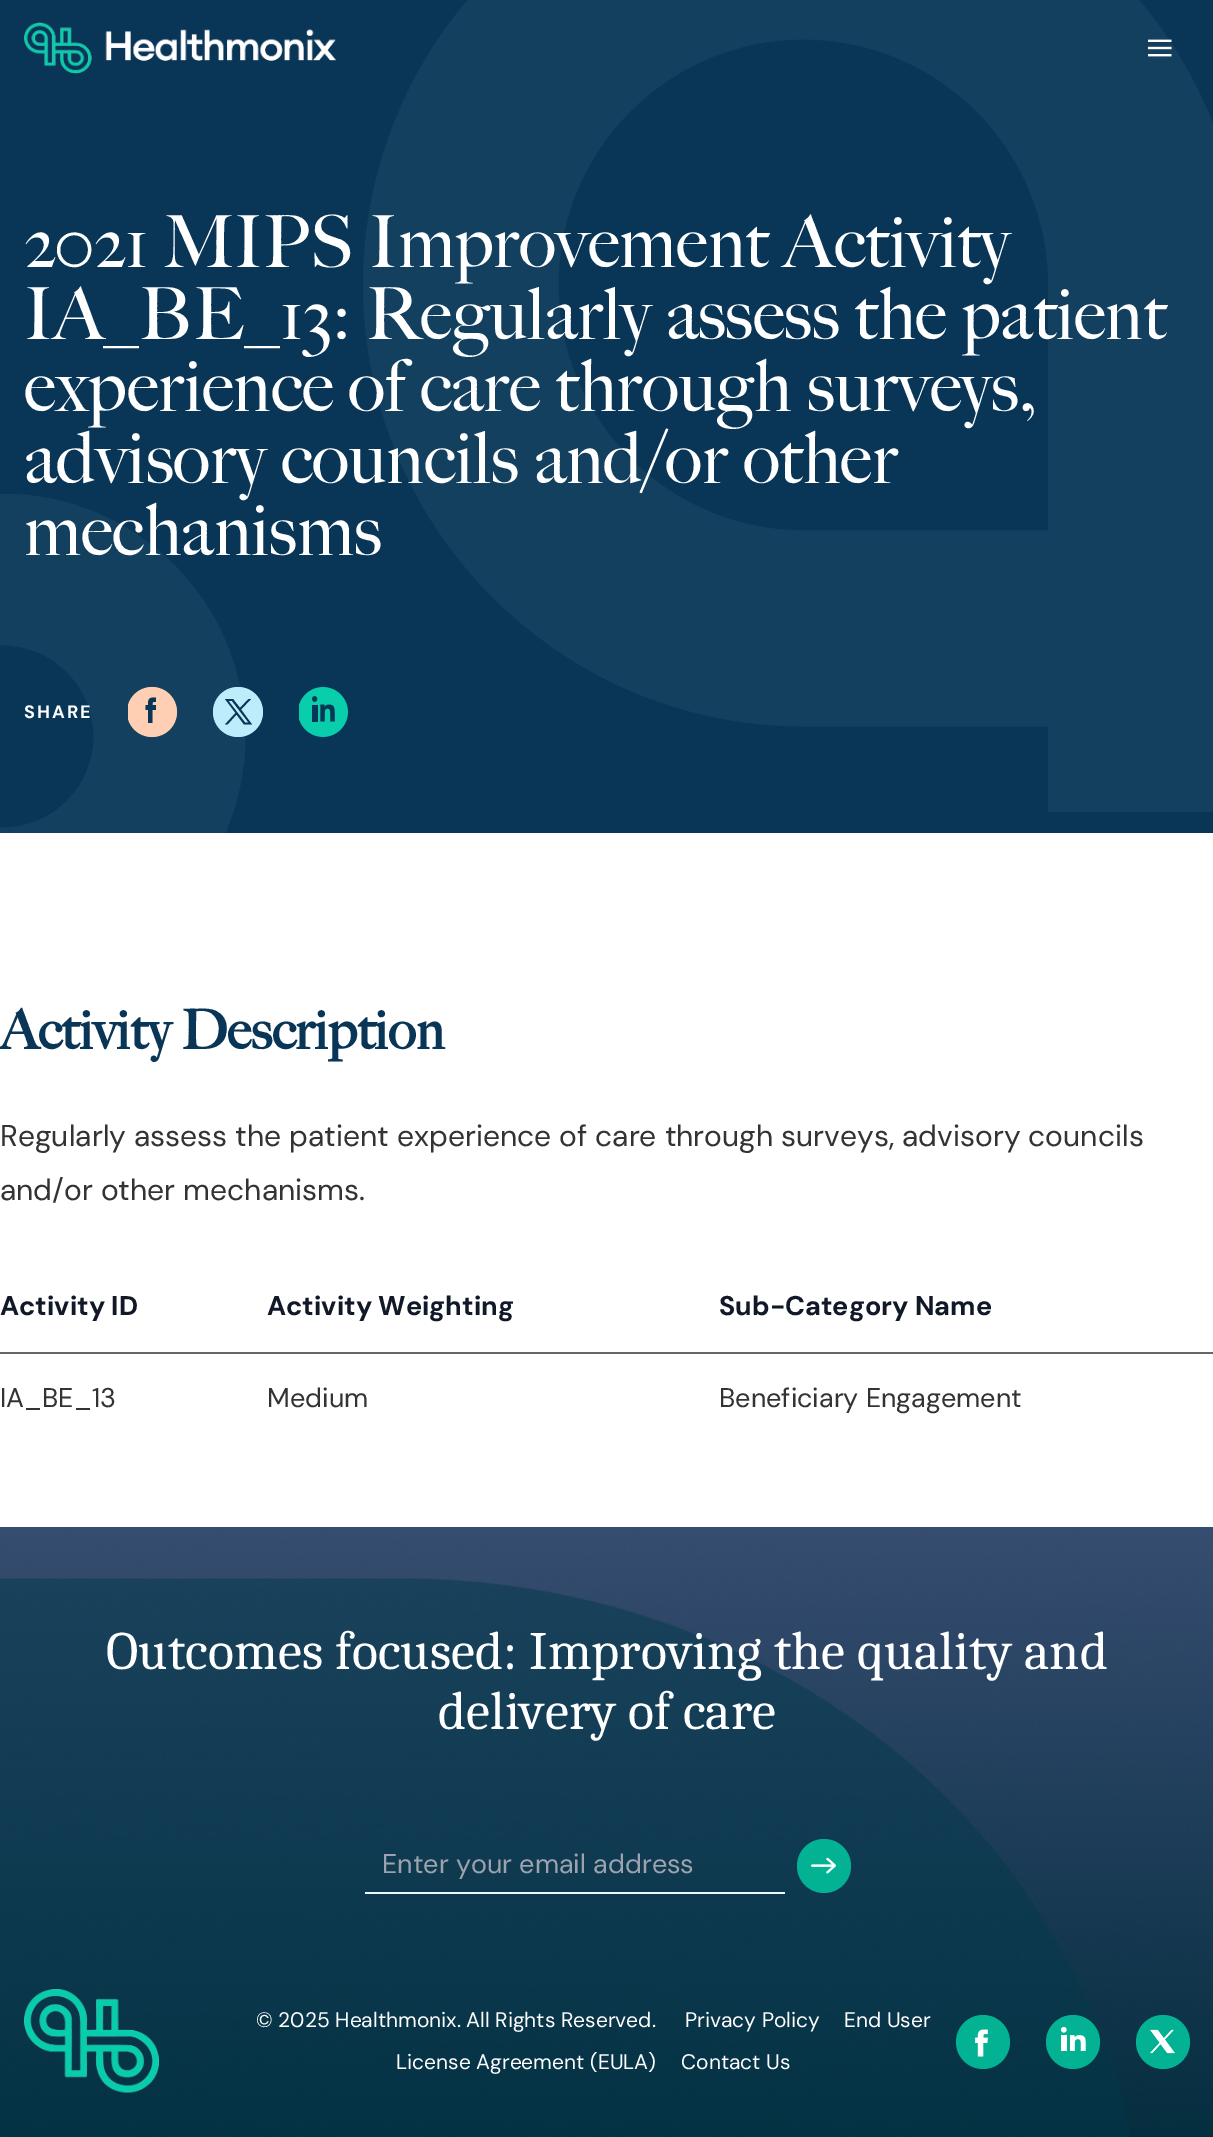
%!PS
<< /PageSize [1213 2137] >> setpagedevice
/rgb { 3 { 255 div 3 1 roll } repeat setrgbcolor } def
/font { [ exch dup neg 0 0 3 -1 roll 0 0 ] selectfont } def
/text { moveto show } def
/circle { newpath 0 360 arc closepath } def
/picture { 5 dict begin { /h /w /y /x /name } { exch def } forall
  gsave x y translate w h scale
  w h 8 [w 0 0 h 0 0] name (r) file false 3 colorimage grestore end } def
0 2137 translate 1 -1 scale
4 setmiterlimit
255 255 255 rgb
0 0 1213 2137 rectfill
9 54 87 rgb
0 0 1213 833 rectfill
(img_01.rgb) 24 22 312 52 picture
(img_03.rgb) 363 0 850 812 picture
(img_02.rgb) 1148 39 24 18 picture
gsave
0 494 246 339 rectclip
20 64 95 rgb
151.7 setlinewidth
2.5 736.5 167 circle stroke
grestore
gsave
128 687 49 50 rectclip
255 207 180 rgb
152 712 25 circle fill
grestore
152.5 723 moveto 0 -13 rlineto 3.5 0 rlineto 0 -5 rlineto -3.5 0 rlineto 0 -3.5 0 -3 3.5 -3 rcurveto 0 -4.5 rlineto -6.5 0 -8 0.5 -8 7.5 rcurveto -2.5 0 rlineto 0 5 rlineto 2.5 0 rlineto 0 13 rlineto closepath fill
189 237 252 rgb
238 712 25 circle fill
9 54 87 rgb
225 699 moveto 10.5 14 rlineto -10.5 11.5 rlineto 2.5 0 rlineto 9 -10 rlineto 7.5 10 rlineto 8 0 rlineto -11 -15 rlineto 10 -10.5 rlineto -2.5 0 rlineto -8.5 9 rlineto -7 -9 rlineto closepath 228.5 701 moveto 3.5 0 rlineto 16.5 21.5 rlineto -3.5 0 rlineto closepath fill
(img_04.rgb) 299 687 49 50 picture
102 102 102 rgb
0 1352 1213 2 rectfill
(img_05.rgb) 0 1527 1213 610 picture
235 250 254 rgb
365 1892 420 2 rectfill
2 178 147 rgb
824 1866 27 circle fill
(img_06.rgb) 811 1857 25 17 picture
(img_07.rgb) 24 1989 135 104 picture
983 2042 27 circle fill
(img_08.rgb) 975 2029 13 28 picture
1073 2042 27 circle fill
(img_09.rgb) 1061 2027 25 24 picture
1163 2042 27 circle fill
(img_10.rgb) 1150 2029 25 25 picture
/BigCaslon-Medium 72 font
255 255 255 rgb
(2021 MIPS Improvement Activity) 24 267 text
(IA_BE_13: Regularly assess the patient) 24 339 text
(experience of care through surveys,) 24 411 text
(advisory councils and/or other) 24 483 text
(mechanisms) 24 555 text
/DMSans-Bold 18 font
24 718 moveto 2 0 (SHARE) ashow
/BigCaslon-Bold 54 font
9 54 87 rgb
(Activity Description) 0 1049 text
/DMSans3-Regular 30 font
51 51 51 rgb
(Regularly assess the patient experience of care through surveys, advisory councils) 0 1146 text
(and/or other mechanisms.) 0 1200 text
/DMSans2-Bold 27 font
17 24 39 rgb
(Activity ID) 0 1315 text
(Activity Weighting) 267 1315 text
(Sub-Category Name) 719 1315 text
/DMSans-Regular 27 font
51 51 51 rgb
(IA_BE_13) 0 1407 text
(Medium) 267 1407 text
(Beneficiary Engagement) 719 1407 text
/Caladea-Regular 54 font
255 255 255 rgb
(Outcomes focused: Improving the quality and) 106 1669 text
(delivery of care) 438 1729 text
/DMSans-Regular 27 font
156 163 175 rgb
(Enter your email address) 382 1873 text
/DMSans2-Regular 21 font
255 255 255 rgb
(© 2025 Healthmonix. All Rights Reserved.) 256 2027 text
(Privacy Policy) 685 2027 text
(End User) 844 2027 text
(License Agreement \(EULA\)) 396 2069 text
(Contact Us) 681 2069 text
showpage
